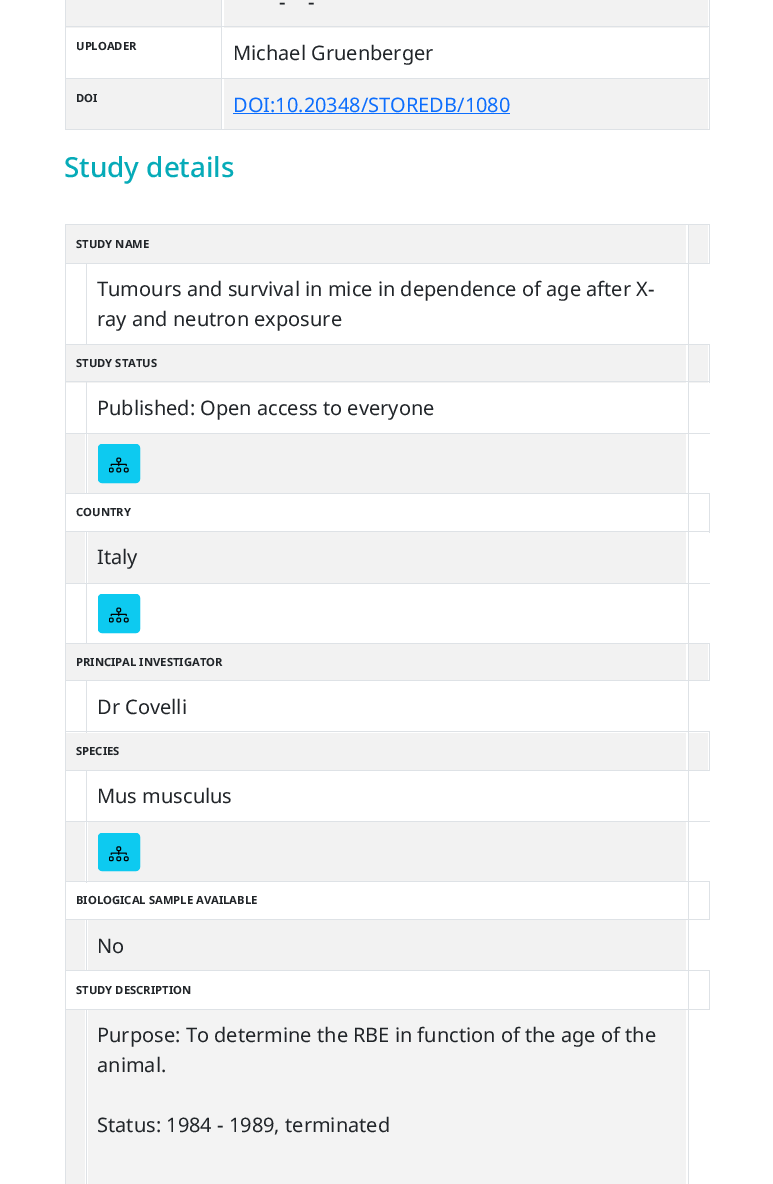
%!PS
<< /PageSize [773 1184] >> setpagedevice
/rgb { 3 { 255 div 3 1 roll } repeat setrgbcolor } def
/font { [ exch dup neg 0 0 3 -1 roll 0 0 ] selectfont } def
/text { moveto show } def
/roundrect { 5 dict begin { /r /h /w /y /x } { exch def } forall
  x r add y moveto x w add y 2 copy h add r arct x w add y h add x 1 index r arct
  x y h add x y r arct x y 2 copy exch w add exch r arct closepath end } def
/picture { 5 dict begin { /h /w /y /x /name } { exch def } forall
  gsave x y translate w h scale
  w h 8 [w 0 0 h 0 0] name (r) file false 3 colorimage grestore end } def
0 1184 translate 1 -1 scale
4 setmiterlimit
255 255 255 rgb
0 0 773 1184 rectfill
242 242 242 rgb
66 0 155 28 rectfill
224 0 484 28 rectfill
222 226 230 rgb
65 26 645 1 rectfill
65 78 645 1 rectfill
65 129 645 1 rectfill
242 242 242 rgb
66 79 155 50 rectfill
222 226 230 rgb
65 0 1 130 rectfill
242 242 242 rgb
224 79 484 50 rectfill
222 226 230 rgb
709 0 1 130 rectfill
221 0 1 130 rectfill
13 110 253 rgb
233 113 277 1 rectfill
222 226 230 rgb
65 224 645 1 rectfill
242 242 242 rgb
66 225 620 38 rectfill
689 225 19 38 rectfill
222 226 230 rgb
65 263 645 1 rectfill
709 224 1 40 rectfill
65 344 645 1 rectfill
86 263 1 82 rectfill
242 242 242 rgb
66 345 620 38 rectfill
689 345 19 38 rectfill
222 226 230 rgb
65 381 645 1 rectfill
709 344 1 39 rectfill
65 433 645 1 rectfill
242 242 242 rgb
66 434 19 59 rectfill
88 434 598 59 rectfill
222 226 230 rgb
65 493 645 1 rectfill
86 381 1 113 rectfill
13 202 240 rgb
98.5 444.5 41 38 3.5 roundrect gsave fill grestore
stroke
(img_01.rgb) 109 457 20 16 picture
222 226 230 rgb
65 531 645 1 rectfill
709 493 1 40 rectfill
65 583 645 1 rectfill
65 643 645 1 rectfill
86 531 1 113 rectfill
13 202 240 rgb
98.5 594.5 41 38 3.5 roundrect gsave fill grestore
stroke
(img_01.rgb) 109 607 20 16 picture
242 242 242 rgb
66 532 19 51 rectfill
88 532 598 51 rectfill
66 644 620 36 rectfill
689 644 19 36 rectfill
222 226 230 rgb
65 680 645 1 rectfill
709 643 1 38 rectfill
65 731 645 1 rectfill
86 680 1 53 rectfill
242 242 242 rgb
66 733 620 37 rectfill
689 733 19 37 rectfill
222 226 230 rgb
65 770 645 1 rectfill
709 731 1 40 rectfill
65 821 645 1 rectfill
242 242 242 rgb
66 822 19 59 rectfill
88 822 598 59 rectfill
222 226 230 rgb
65 881 645 1 rectfill
86 770 1 113 rectfill
13 202 240 rgb
98.5 833.5 41 37 3.5 roundrect gsave fill grestore
stroke
(img_02.rgb) 109 846 20 16 picture
222 226 230 rgb
65 919 645 1 rectfill
709 881 1 39 rectfill
242 242 242 rgb
66 920 19 50 rectfill
88 920 598 50 rectfill
222 226 230 rgb
65 970 645 1 rectfill
86 919 1 52 rectfill
65 1009 645 1 rectfill
709 970 1 40 rectfill
242 242 242 rgb
66 1010 19 174 rectfill
222 226 230 rgb
65 224 1 960 rectfill
243 243 243 rgb
88 1010 598 174 rectfill
222 226 230 rgb
688 224 1 960 rectfill
86 1009 1 175 rectfill
/NotoSans-Regular 20 font
33 37 41 rgb
(-) 279 9 text
(-) 308 9 text
/NotoSans-Bold 11.25 font
(UPLOADER) 76 50 text
/NotoSans-Regular 20 font
(Michael Gruenberger) 233 60 text
/NotoSans-Bold 11.25 font
(DOI) 76 102 text
/NotoSans-Regular 20 font
13 110 253 rgb
(DOI:10.20348/STOREDB/1080) 233 112 text
/NotoSans-Medium 27.75 font
6 171 184 rgb
(Study details) 64 177 text
/NotoSans-Bold 11.25 font
33 37 41 rgb
(STUDY NAME) 76 248 text
/NotoSans-Regular 20 font
(Tumours and survival in mice in dependence of age after X-) 97 296 text
(ray and neutron exposure) 97 326 text
/NotoSans-Bold 11.25 font
(STUDY STATUS) 76 367 text
/NotoSans-Regular 20 font
(Published: Open access to everyone) 97 415 text
/NotoSans-Bold 11.25 font
(COUNTRY) 76 516 text
/NotoSans-Regular 20 font
(Italy) 97 564 text
/NotoSans-Bold 11.25 font
(PRINCIPAL INVESTIGATOR) 76 666 text
/NotoSans-Regular 20 font
(Dr Covelli) 97 714 text
/NotoSans-Bold 11.25 font
(SPECIES) 76 755 text
/NotoSans-Regular 20 font
(Mus musculus) 97 803 text
/NotoSans-Bold 11.25 font
(BIOLOGICAL SAMPLE AVAILABLE) 76 904 text
/NotoSans-Regular 20 font
(No) 97 953 text
/NotoSans-Bold 11.25 font
(STUDY DESCRIPTION) 76 994 text
/NotoSans-Regular 20 font
(Purpose: To determine the RBE in function of the age of the) 97 1042 text
(animal.) 97 1072 text
(Status: 1984 - 1989, terminated) 97 1132 text
showpage
